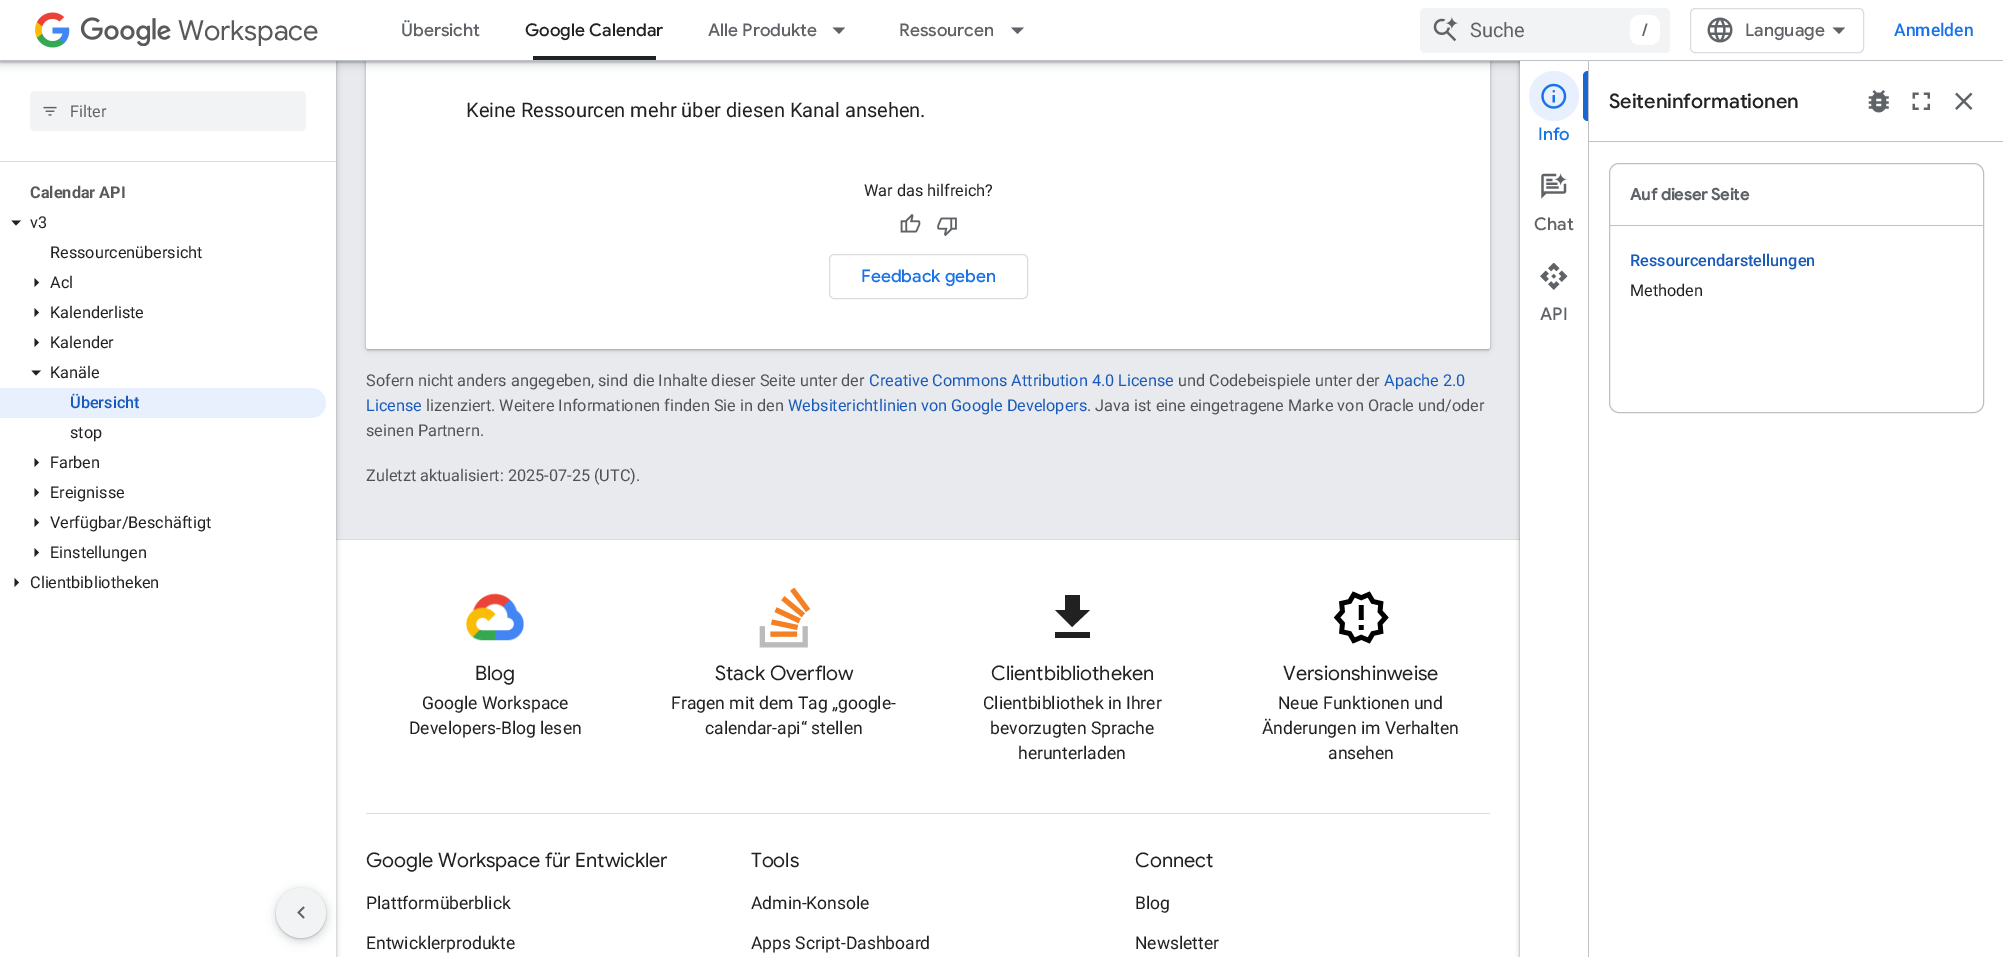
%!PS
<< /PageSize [2003 957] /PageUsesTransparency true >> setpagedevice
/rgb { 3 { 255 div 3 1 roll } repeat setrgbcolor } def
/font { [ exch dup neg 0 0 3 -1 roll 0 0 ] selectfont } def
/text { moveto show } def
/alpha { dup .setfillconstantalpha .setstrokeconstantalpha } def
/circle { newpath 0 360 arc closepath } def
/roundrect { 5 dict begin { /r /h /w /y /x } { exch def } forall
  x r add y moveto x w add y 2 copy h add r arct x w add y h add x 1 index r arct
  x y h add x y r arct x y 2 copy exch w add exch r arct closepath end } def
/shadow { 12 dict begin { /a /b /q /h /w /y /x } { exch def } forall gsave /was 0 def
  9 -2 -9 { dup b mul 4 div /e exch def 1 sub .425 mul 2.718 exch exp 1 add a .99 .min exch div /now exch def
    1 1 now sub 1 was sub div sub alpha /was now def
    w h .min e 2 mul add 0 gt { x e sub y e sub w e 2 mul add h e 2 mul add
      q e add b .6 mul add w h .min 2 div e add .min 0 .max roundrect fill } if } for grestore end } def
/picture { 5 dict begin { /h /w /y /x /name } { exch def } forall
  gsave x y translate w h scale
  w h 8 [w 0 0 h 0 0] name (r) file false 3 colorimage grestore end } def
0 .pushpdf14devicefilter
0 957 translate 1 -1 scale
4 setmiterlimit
232 234 237 rgb
0 0 2003 957 rectfill
255 255 255 rgb
336 540 1184 417 rectfill
218 220 224 rgb
336 539 1184 1 rectfill
60 64 67 rgb
-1 0 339 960 0 2 0.15 shadow
0 1 336 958 0 1 0.3 shadow
255 255 255 rgb
0 61 336 896 rectfill
60 64 67 rgb
365 -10 1126 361 4 2 0.15 shadow
366 -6 1124 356 2.5 1 0.3 shadow
255 255 255 rgb
366 -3 1124 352 2.5 roundrect fill
60 64 67 rgb
-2 -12 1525 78 0 4 0.15 shadow
0 -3 1520 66 0 1 0.3 shadow
0 0 0 rgb
1519 60 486 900 0 2 0.15 shadow
1520 61 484 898 0 1 0.3 shadow
255 255 255 rgb
0 0 2003 60 rectfill
1520 61 483 896 rectfill
189 193 198 rgb
1588 60 1 897 rectfill
0 60 2003 1 rectfill
(img_01.rgb) 35 12 35 36 picture
(img_02.rgb) 80 17 91 29 picture
32 33 36 rgb
533 56 123 4 rectfill
95 99 104 rgb
832.5 27.5 moveto 12.5 0 rlineto -6 6.5 rlineto closepath fill
1011 27.5 moveto 13 0 rlineto -6.5 6.5 rlineto closepath fill
241 243 244 rgb
1420 8 250 45 5 roundrect fill
(img_03.rgb) 1433 16 26 26 picture
255 255 255 rgb
1630 15 30 30 10 roundrect fill
218 220 224 rgb
1690.5 8.5 173 44 4.5 roundrect stroke
(img_04.rgb) 1707 17 26 26 picture
95 99 104 rgb
1839 34 moveto -6.5 -6.5 rlineto 12.5 0 rlineto closepath fill
218 220 224 rgb
0 161 336 1 rectfill
241 243 244 rgb
30 91 276 40 5 roundrect fill
(img_05.rgb) 43 106 14 10 picture
32 33 36 rgb
11.5 220.5 moveto 9.5 0 rlineto -5 5 rlineto closepath fill
34.5 287 moveto 0 -9 rlineto 4.5 4.5 rlineto closepath fill
34.5 317 moveto 0 -9 rlineto 4.5 4.5 rlineto closepath fill
34.5 347 moveto 0 -9 rlineto 4.5 4.5 rlineto closepath fill
31.5 370.5 moveto 9.5 0 rlineto -5 5 rlineto closepath fill
232 240 254 rgb
0 388 moveto 311 0 rlineto 8.5 0 15 6.5 15 15 rcurveto 0 8.5 -6.5 15 -15 15 rcurveto -311 0 rlineto closepath fill
32 33 36 rgb
34.5 467 moveto 0 -9 rlineto 4.5 4.5 rlineto closepath fill
34.5 497 moveto 0 -9 rlineto 4.5 4.5 rlineto closepath fill
34.5 527 moveto 0 -9 rlineto 4.5 4.5 rlineto closepath fill
34.5 557 moveto 0 -9 rlineto 4.5 4.5 rlineto closepath fill
14.5 587 moveto 0 -9 rlineto 4.5 4.5 rlineto closepath fill
(img_06.rgb) 900 214 21 19 picture
(img_07.rgb) 937 217 20 19 picture
218 220 224 rgb
829.5 254.5 198 44 4.5 roundrect stroke
232 240 254 rgb
1554 96 25 circle fill
(img_08.rgb) 1541 83 26 26 picture
25 103 210 rgb
1588 71 moveto 0 50 rlineto -3 0 -5 -2 -5 -5 rcurveto 0 -40 rlineto 0 -3 2 -5 5 -5 rcurveto closepath fill
(img_09.rgb) 1541 173 27 26 picture
(img_10.rgb) 1540 263 28 27 picture
189 193 198 rgb
1589 141 414 1 rectfill
(img_11.rgb) 1868 90 21 23 picture
(img_12.rgb) 1912 92 18 18 picture
(img_13.rgb) 1955 92 18 18 picture
1609.5 163.5 374 249 9.5 roundrect stroke
1610 225 373 1 rectfill
218 220 224 rgb
366 813 1124 1 rectfill
(img_14.rgb) 466 593 59 48 picture
(img_15.rgb) 759 588 52 60 picture
33 33 33 rgb
1055 632 moveto 35 0 rlineto 0 6 rlineto -35 0 rlineto closepath 1090 610 moveto -18 17 rlineto -17 -17 rlineto 10 0 rlineto 0 -15 rlineto 15 0 rlineto 0 15 rlineto closepath fill
(img_16.rgb) 1333 591 56 53 picture
60 64 67 rgb
274 888 55 55 27.5 4 0.15 shadow
276 889 50 50 25 1 0.3 shadow
241 243 244 rgb
301 913 25 circle fill
(img_17.rgb) 297 906 8 13 picture
/GoogleSans-Regular 27.5 font
89 89 89 rgb
(Workspace) 178 40 text
/GoogleSans-Medium 17.5 font
95 99 104 rgb
(Übersicht) 401 36 text
33 33 33 rgb
(Google Calendar) 525 36 text
95 99 104 rgb
(Alle Produkte) 708 36 text
(Ressourcen) 899 36 text
/Roboto-Regular 20 font
(Suche) 1470 37 text
/GoogleSans-Medium 17.5 font
(/) 1642 36 text
(Language) 1745 36 text
/Roboto-Medium 17.5 font
26 115 232 rgb
(Anmelden) 1894 36 text
/Roboto-Regular 16.25 font
95 99 104 rgb
(Filter) 70 117 text
/Roboto-Bold 16.25 font
89 89 89 rgb
(Calendar API) 30 198 text
/Roboto-Regular 16.25 font
33 33 33 rgb
(v3) 30 228 text
(Ressourcenübersicht) 50 258 text
(Acl) 50 288 text
(Kalenderliste) 50 318 text
(Kalender) 50 348 text
(Kanäle) 50 378 text
/Roboto-Medium 16.25 font
24 90 188 rgb
(Übersicht) 70 408 text
/Roboto-Regular 16.25 font
33 33 33 rgb
(stop) 70 438 text
(Farben) 50 468 text
(Ereignisse) 50 498 text
(Verfügbar/Beschäftigt) 50 528 text
(Einstellungen) 50 558 text
(Clientbibliotheken) 30 588 text
/Roboto-Regular 20 font
(Keine Ressourcen mehr über diesen Kanal ansehen.) 466 117 text
/Roboto-Regular 16.25 font
(War das hilfreich?) 864 196 text
/GoogleSans-Medium 17.5 font
26 115 232 rgb
(Feedback geben) 861 282 text
/Roboto-Regular 16.25 font
81 82 83 rgb
(Sofern nicht anders angegeben, sind die Inhalte dieser Seite unter der) 366 386 text
24 90 188 rgb
(Creative Commons Attribution 4.0 License) 869 386 text
81 82 83 rgb
(und Codebeispiele unter der) 1178 386 text
24 90 188 rgb
(Apache 2.0) 1384 386 text
(License) 366 411 text
81 82 83 rgb
(lizenziert. Weitere Informationen finden Sie in den) 426 411 text
24 90 188 rgb
(Websiterichtlinien von Google Developers) 788 411 text
81 82 83 rgb
(. Java ist eine eingetragene Marke von Oracle und/oder) 1087 411 text
(seinen Partnern.) 366 436 text
(Zuletzt aktualisiert: 2025-07-25 \(UTC\).) 366 481 text
/GoogleSans-Medium 17.5 font
26 115 232 rgb
(Info) 1538 140 text
95 99 104 rgb
(Chat) 1534 230 text
(API) 1540 320 text
/GoogleSans-Medium 20 font
33 33 33 rgb
(Seiteninformationen) 1609 108 text
/GoogleSans-Bold 16.25 font
95 99 104 rgb
(Auf dieser Seite) 1630 200 text
/Roboto-Medium 16.25 font
24 90 188 rgb
(Ressourcendarstellungen) 1630 266 text
/Roboto-Regular 16.25 font
33 33 33 rgb
(Methoden) 1630 296 text
/GoogleSans-Regular 20 font
(Blog) 475 680 text
/Roboto-Regular 17.5 font
(Google Workspace) 422 709 text
(Developers-Blog lesen) 409 734 text
/GoogleSans-Regular 20 font
(Stack Overflow) 715 680 text
/Roboto-Regular 17.5 font
(Fragen mit dem Tag „google-) 671 709 text
(calendar-api“ stellen) 705 734 text
/GoogleSans-Regular 20 font
(Clientbibliotheken) 991 680 text
/Roboto-Regular 17.5 font
(Clientbibliothek in Ihrer) 983 709 text
(bevorzugten Sprache) 990 734 text
(herunterladen) 1018 759 text
/GoogleSans-Regular 20 font
(Versionshinweise) 1283 680 text
/Roboto-Regular 17.5 font
(Neue Funktionen und) 1278 709 text
(Änderungen im Verhalten) 1262 734 text
(ansehen) 1328 759 text
/GoogleSans-Regular 20 font
(Google Workspace für Entwickler) 366 867 text
/Roboto-Regular 17.5 font
(Plattformüberblick) 366 909 text
(Entwicklerprodukte) 366 949 text
/GoogleSans-Regular 20 font
(Tools) 751 867 text
/Roboto-Regular 17.5 font
(Admin-Konsole) 751 909 text
(Apps Script-Dashboard) 751 949 text
/GoogleSans-Regular 20 font
(Connect) 1135 867 text
/Roboto-Regular 17.5 font
(Blog) 1135 909 text
(Newsletter) 1135 949 text
.poppdf14devicefilter showpage
